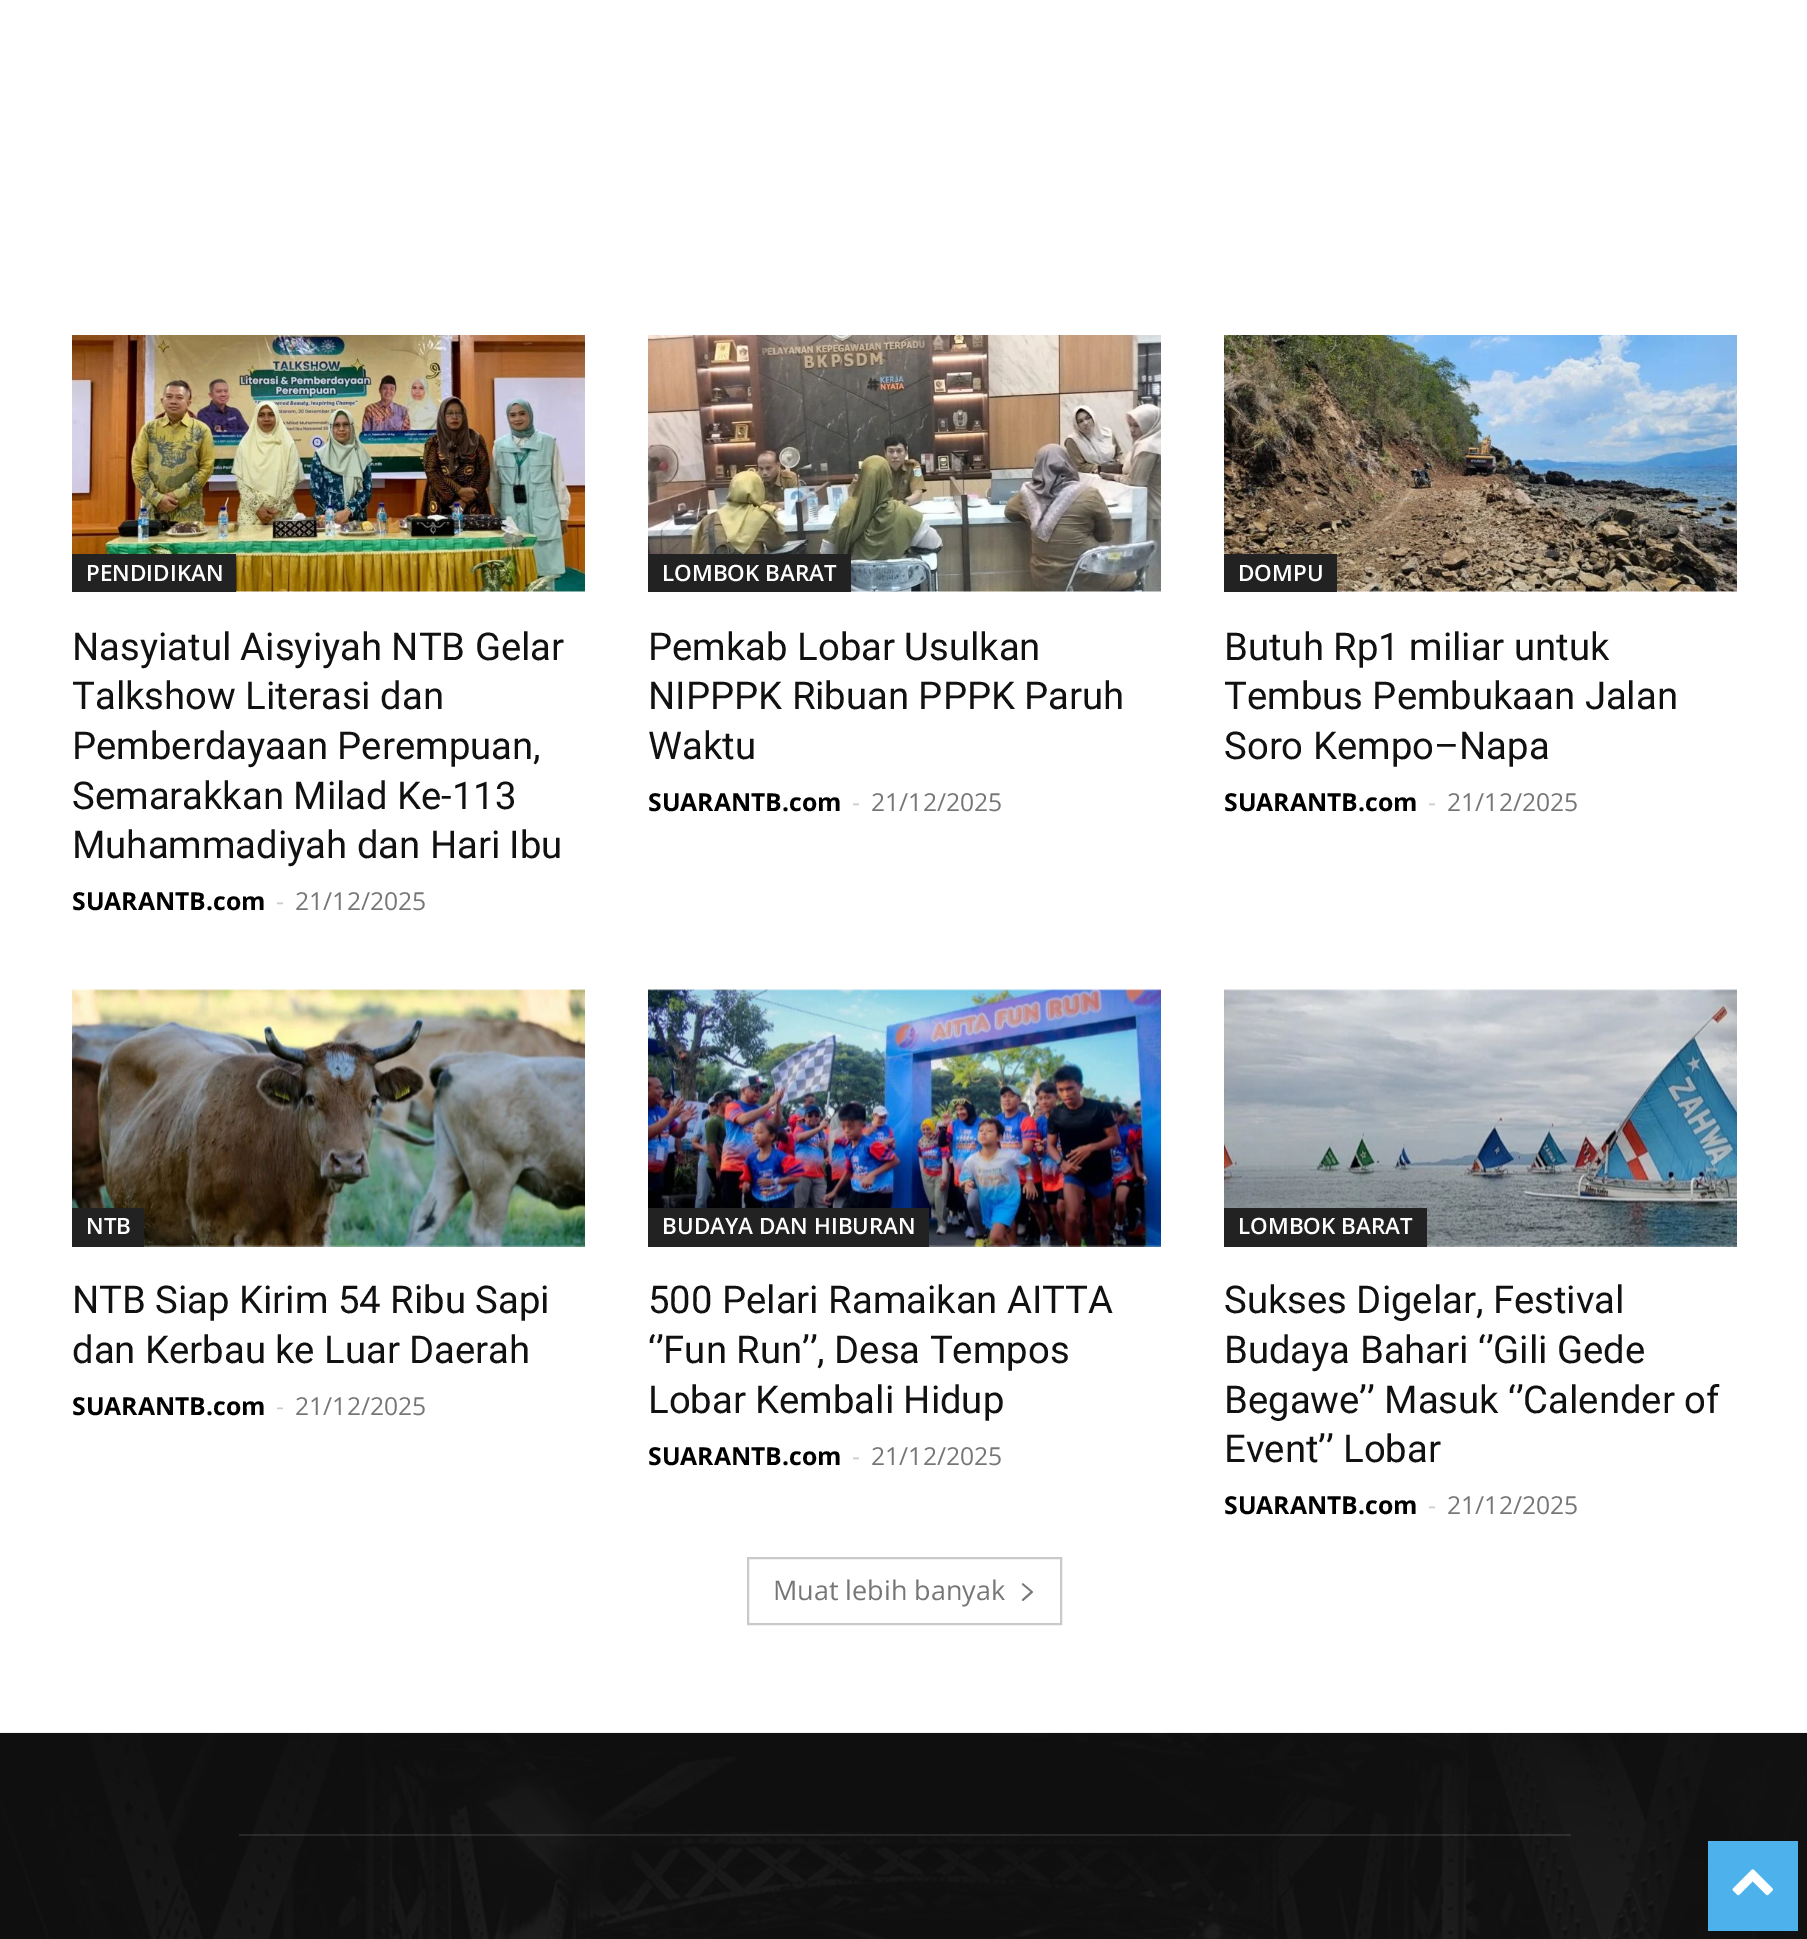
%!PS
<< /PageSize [1807 1939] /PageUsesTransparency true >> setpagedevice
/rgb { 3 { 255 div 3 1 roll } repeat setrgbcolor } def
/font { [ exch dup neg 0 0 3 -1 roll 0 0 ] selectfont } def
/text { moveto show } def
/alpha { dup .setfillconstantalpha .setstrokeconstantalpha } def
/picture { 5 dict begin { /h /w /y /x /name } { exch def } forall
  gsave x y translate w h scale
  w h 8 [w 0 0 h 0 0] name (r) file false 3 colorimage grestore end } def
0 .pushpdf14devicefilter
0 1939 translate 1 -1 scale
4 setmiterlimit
255 255 255 rgb
0 0 1807 1939 rectfill
(img_01.rgb) 72 335 513 257 picture
34 34 34 rgb
72 554 164 38 rectfill
(img_02.rgb) 648 335 513 257 picture
648 554 203 38 rectfill
(img_03.rgb) 1224 335 513 257 picture
1224 554 113 38 rectfill
(img_04.rgb) 72 989 513 258 picture
72 1208 72 39 rectfill
(img_05.rgb) 648 989 513 258 picture
648 1208 281 39 rectfill
(img_06.rgb) 1224 989 513 258 picture
1224 1208 203 39 rectfill
201 201 201 rgb
2 setlinewidth
748 1558 313 66 rectstroke
(img_07.rgb) 1021 1583 12 18 picture
17 17 17 rgb
0 1733 1807 206 rectfill
(img_08.rgb) 0 1732 1807 207 picture
0.1 alpha
255 255 255 rgb
239 1834 1332 2 rectfill
1 alpha
77 178 236 rgb
1708 1841 90 90 rectfill
(img_09.rgb) 1732 1869 41 27 picture
/OpenSans-SemiBold 22.5 font
255 255 255 rgb
(PENDIDIKAN) 86 581 text
/Roboto-Regular 38.25 font
17 17 17 rgb
(Nasyiatul Aisyiyah NTB Gelar) 72 660 text
(Talkshow Literasi dan) 72 709 text
(Pemberdayaan Perempuan,) 72 759 text
(Semarakkan Milad Ke-113) 72 809 text
(Muhammadiyah dan Hari Ibu) 72 858 text
/OpenSans-Bold 24.75 font
0 0 0 rgb
(SUARANTB.com) 72 910 text
/OpenSans-Regular 24.75 font
204 204 204 rgb
(-) 276 910 text
118 118 118 rgb
(21/12/2025) 295 910 text
/OpenSans-SemiBold 22.5 font
255 255 255 rgb
(LOMBOK BARAT) 662 581 text
/Roboto-Regular 38.25 font
17 17 17 rgb
(Pemkab Lobar Usulkan) 648 660 text
(NIPPPK Ribuan PPPK Paruh) 648 709 text
(Waktu) 648 759 text
/OpenSans-Bold 24.75 font
0 0 0 rgb
(SUARANTB.com) 648 811 text
/OpenSans-Regular 24.75 font
204 204 204 rgb
(-) 852 811 text
118 118 118 rgb
(21/12/2025) 871 811 text
/OpenSans-SemiBold 22.5 font
255 255 255 rgb
(DOMPU) 1238 581 text
/Roboto-Regular 38.25 font
17 17 17 rgb
(Butuh Rp1 miliar untuk) 1224 660 text
(Tembus Pembukaan Jalan) 1224 709 text
(Soro Kempo–Napa) 1224 759 text
/OpenSans-Bold 24.75 font
0 0 0 rgb
(SUARANTB.com) 1224 811 text
/OpenSans-Regular 24.75 font
204 204 204 rgb
(-) 1428 811 text
118 118 118 rgb
(21/12/2025) 1447 811 text
/OpenSans-SemiBold 22.5 font
255 255 255 rgb
(NTB) 86 1234 text
/Roboto-Regular 38.25 font
17 17 17 rgb
(NTB Siap Kirim 54 Ribu Sapi) 72 1313 text
(dan Kerbau ke Luar Daerah) 72 1363 text
/OpenSans-Bold 24.75 font
0 0 0 rgb
(SUARANTB.com) 72 1415 text
/OpenSans-Regular 24.75 font
204 204 204 rgb
(-) 276 1415 text
118 118 118 rgb
(21/12/2025) 295 1415 text
/OpenSans-SemiBold 22.5 font
255 255 255 rgb
(BUDAYA DAN HIBURAN) 662 1234 text
/Roboto-Regular 38.25 font
17 17 17 rgb
(500 Pelari Ramaikan AITTA) 648 1313 text
(‘’Fun Run’’, Desa Tempos) 648 1363 text
(Lobar Kembali Hidup) 648 1413 text
/OpenSans-Bold 24.75 font
0 0 0 rgb
(SUARANTB.com) 648 1465 text
/OpenSans-Regular 24.75 font
204 204 204 rgb
(-) 852 1465 text
118 118 118 rgb
(21/12/2025) 871 1465 text
/OpenSans-SemiBold 22.5 font
255 255 255 rgb
(LOMBOK BARAT) 1238 1234 text
/Roboto-Regular 38.25 font
17 17 17 rgb
(Sukses Digelar, Festival) 1224 1313 text
(Budaya Bahari ‘’Gili Gede) 1224 1363 text
(Begawe’’ Masuk ‘’Calender of) 1224 1413 text
(Event’’ Lobar) 1224 1462 text
/OpenSans-Bold 24.75 font
0 0 0 rgb
(SUARANTB.com) 1224 1514 text
/OpenSans-Regular 24.75 font
204 204 204 rgb
(-) 1428 1514 text
118 118 118 rgb
(21/12/2025) 1447 1514 text
/OpenSans-Regular 27 font
(Muat lebih banyak) 773 1600 text
.poppdf14devicefilter showpage
